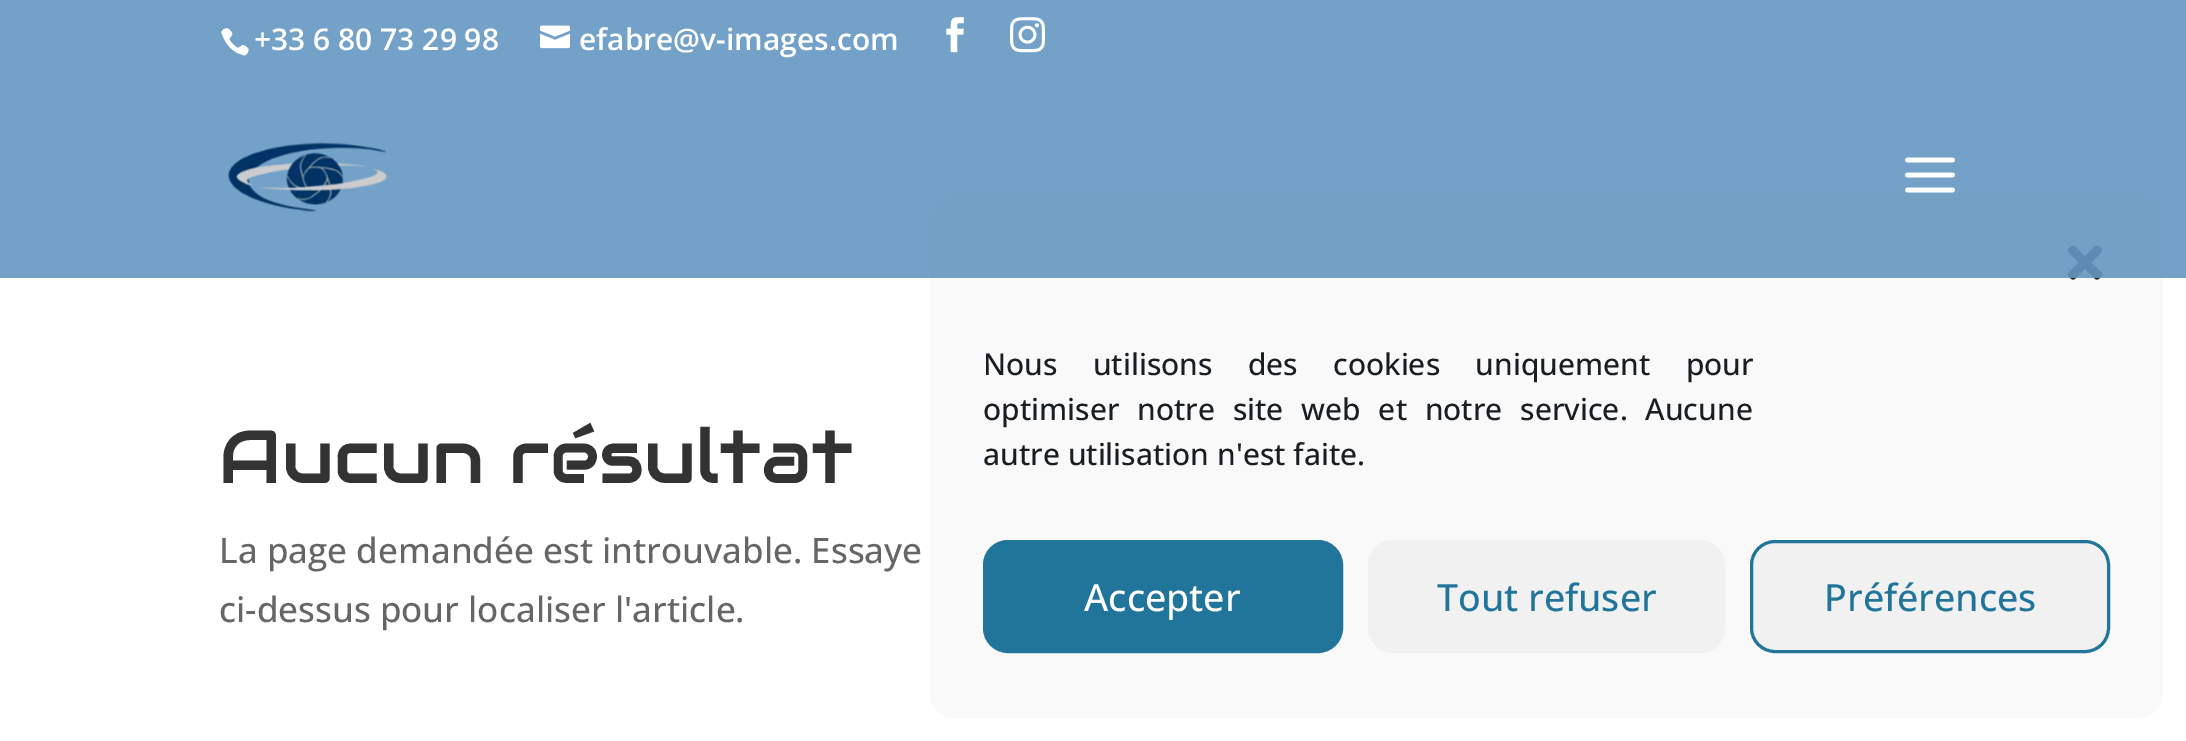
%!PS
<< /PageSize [2186 741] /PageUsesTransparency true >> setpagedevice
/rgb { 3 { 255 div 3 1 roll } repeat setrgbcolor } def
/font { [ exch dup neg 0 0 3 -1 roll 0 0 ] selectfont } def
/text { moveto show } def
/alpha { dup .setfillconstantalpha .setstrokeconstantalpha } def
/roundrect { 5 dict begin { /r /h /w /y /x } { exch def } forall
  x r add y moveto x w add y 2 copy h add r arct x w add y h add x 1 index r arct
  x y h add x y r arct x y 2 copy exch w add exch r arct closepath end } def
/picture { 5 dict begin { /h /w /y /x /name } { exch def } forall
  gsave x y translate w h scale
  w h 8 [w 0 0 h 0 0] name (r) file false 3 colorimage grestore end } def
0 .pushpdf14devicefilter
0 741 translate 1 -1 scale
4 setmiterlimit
255 255 255 rgb
0 0 2186 741 rectfill
116 161 199 rgb
0 0 2186 78 rectfill
(img_01.rgb) 221 28 28 28 picture
(img_02.rgb) 540 25 30 24 picture
(img_03.rgb) 946 17 18 36 picture
(img_04.rgb) 1010 17 35 36 picture
249 249 249 rgb
930 193 1233 525 25 roundrect fill
(img_07.rgb) 2067 245 36 35 picture
0.9 alpha
100 151 193 rgb
0 78 2186 200 rectfill
1 alpha
(img_05.rgb) 228 142 160 70 picture
(img_06.rgb) 1905 157 50 36 picture
33 117 155 rgb
984.5 541.5 357 110 23.5 roundrect gsave fill grestore
3 setlinewidth
stroke
241 241 241 rgb
1368 540 357 113 25 roundrect fill
1751.5 541.5 357 110 23.5 roundrect gsave fill grestore
33 117 155 rgb
stroke
/OpenSans-SemiBold 30 font
255 255 255 rgb
(+33 6 80 73 29 98) 254 50 text
(efabre@v-images.com) 579 50 text
/Audiowide-Regular 75 font
51 51 51 rgb
(Aucun résultat) 219 483 text
/OpenSans-Medium 35 font
102 102 102 rgb
(La page demandée est introuvable. Essaye) 219 563 text
(ci-dessus pour localiser l'article.) 219 622 text
/OpenSans-Medium 30 font
25 30 35 rgb
983 375 moveto 27.5 0 32 (Nous utilisons des cookies uniquement pour) widthshow
983 420 moveto 10 0 32 (optimiser notre site web et notre service. Aucune) widthshow
(autre utilisation n'est faite.) 983 465 text
/OpenSans-Medium 37.5 font
255 255 255 rgb
(Accepter) 1084 611 text
33 117 155 rgb
(Tout refuser) 1437 611 text
(Préférences) 1824 611 text
.poppdf14devicefilter showpage
